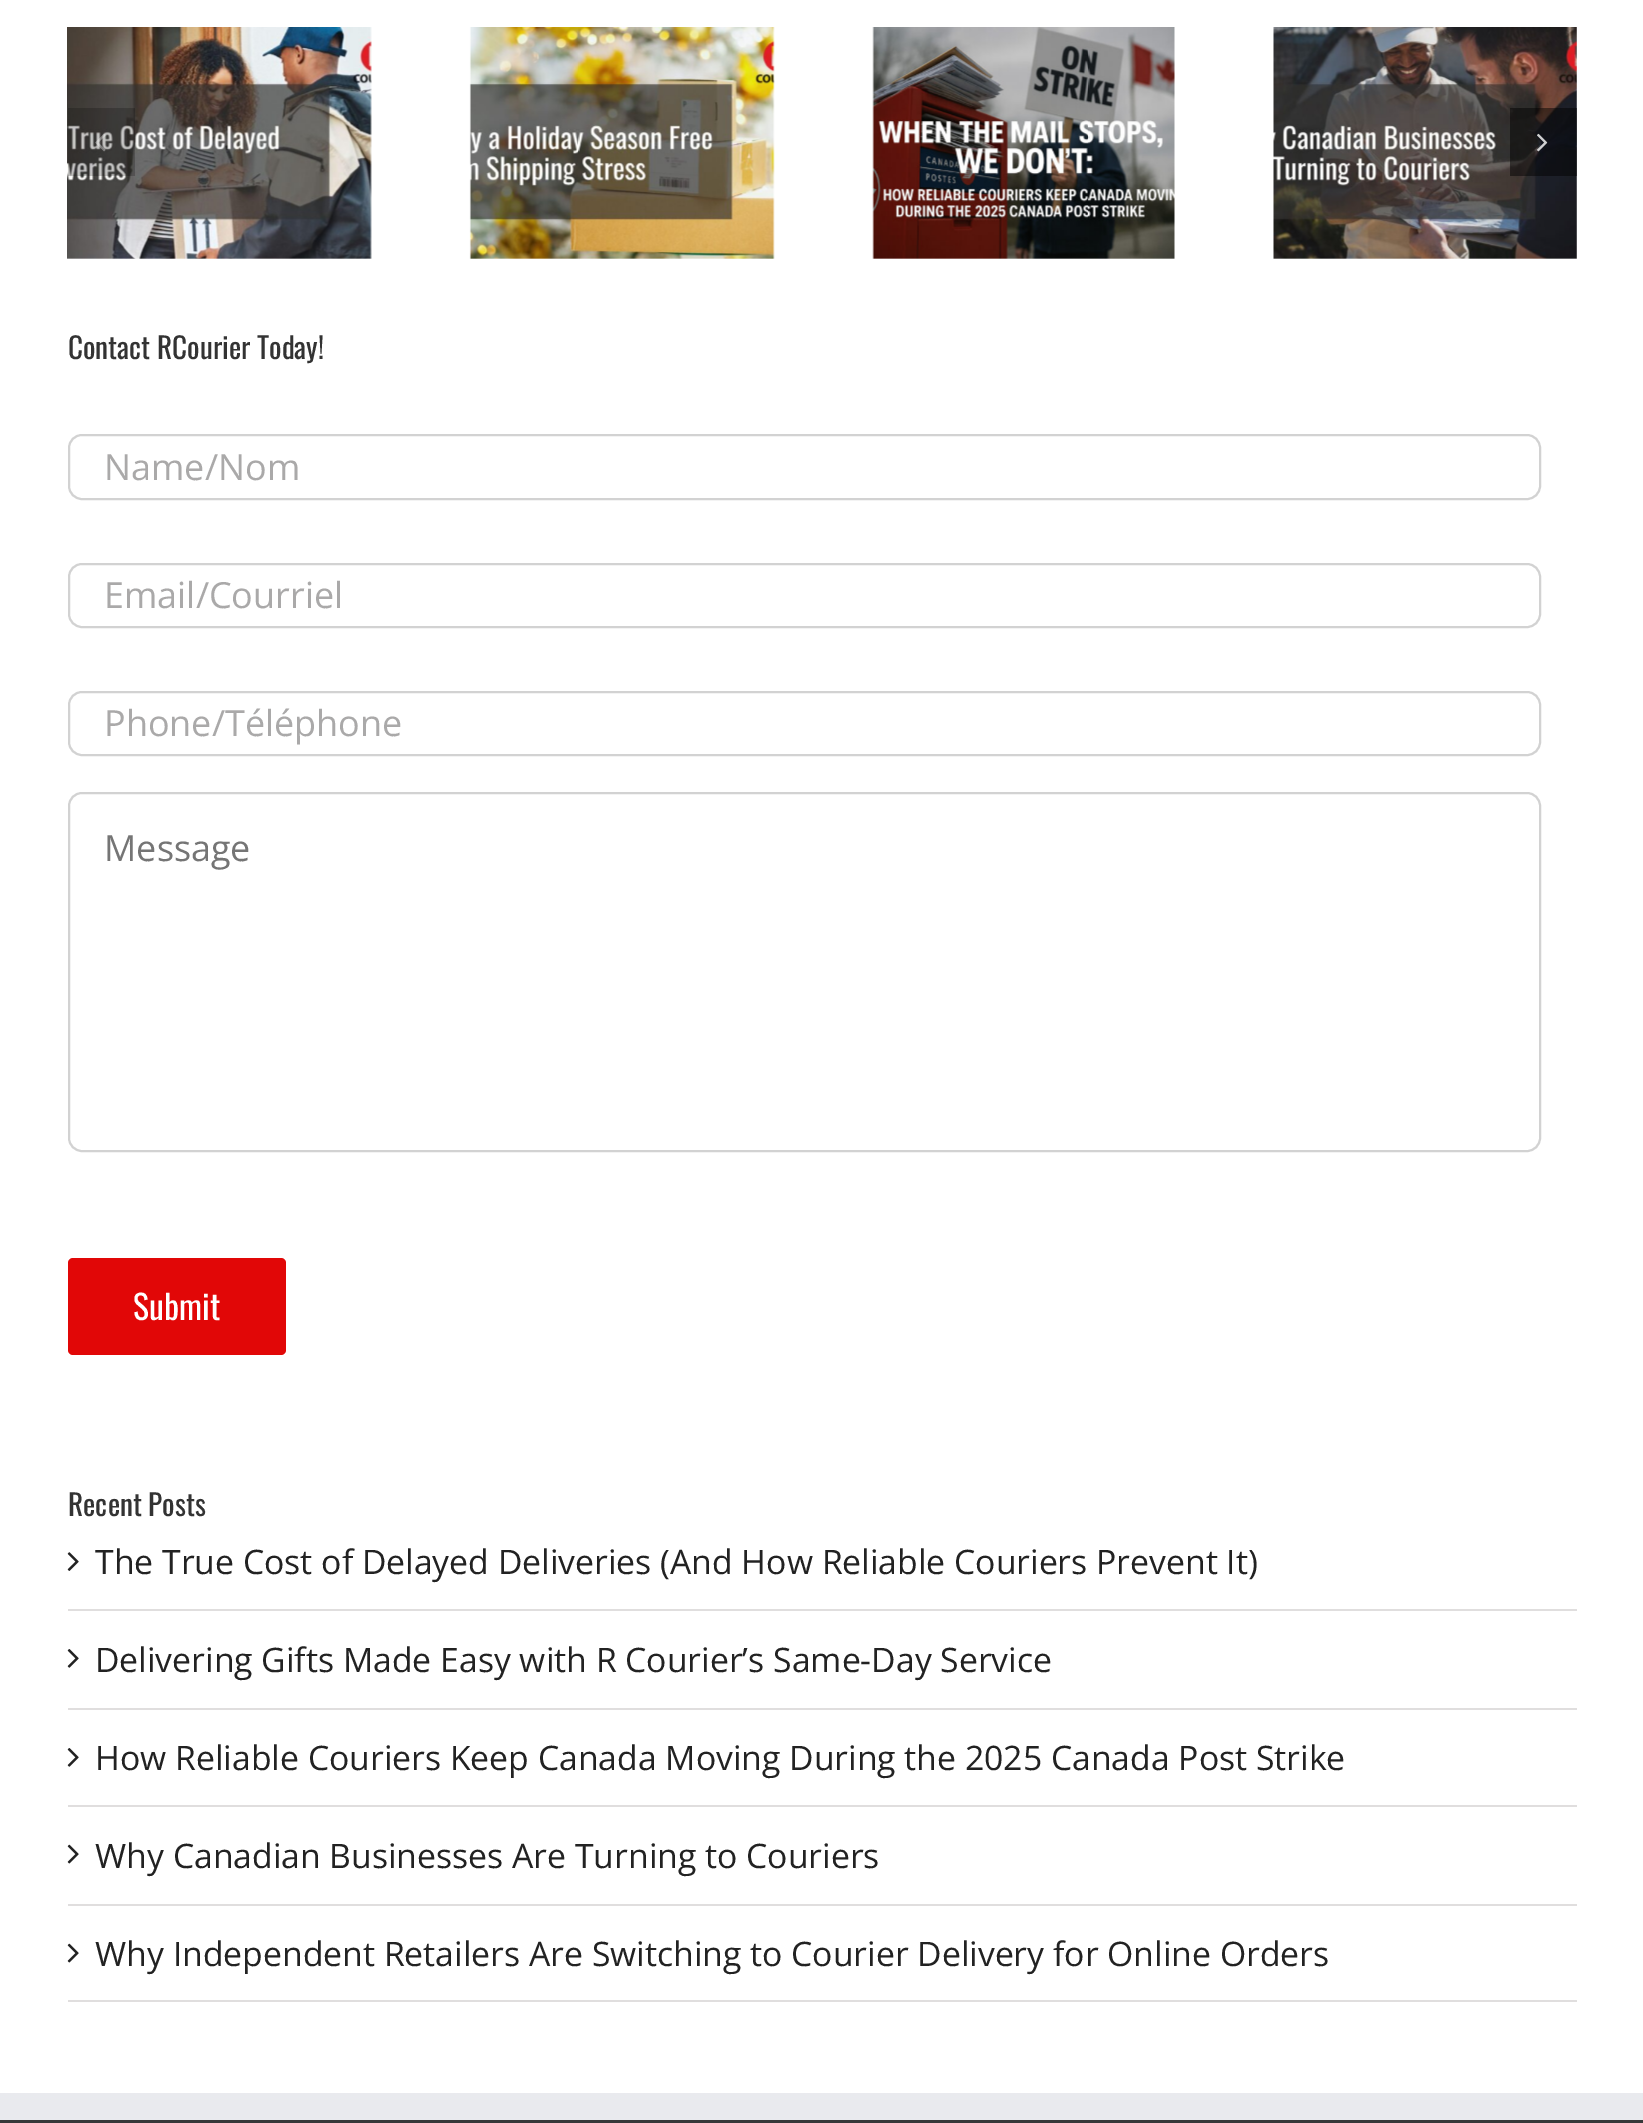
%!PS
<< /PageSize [1643 2123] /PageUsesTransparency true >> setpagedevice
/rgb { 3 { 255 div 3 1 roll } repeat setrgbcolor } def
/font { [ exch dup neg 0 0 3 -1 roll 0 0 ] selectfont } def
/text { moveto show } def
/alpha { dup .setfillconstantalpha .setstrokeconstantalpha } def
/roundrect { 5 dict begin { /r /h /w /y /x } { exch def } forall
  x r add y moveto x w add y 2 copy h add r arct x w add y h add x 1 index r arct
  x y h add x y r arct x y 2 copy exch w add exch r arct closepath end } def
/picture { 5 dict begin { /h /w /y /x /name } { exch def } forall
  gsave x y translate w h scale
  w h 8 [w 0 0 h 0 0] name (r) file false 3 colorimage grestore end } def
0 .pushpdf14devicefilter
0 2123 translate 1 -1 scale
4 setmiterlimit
255 255 255 rgb
0 0 1643 2123 rectfill
(img_01.rgb) 67 27 305 232 picture
(img_02.rgb) 469 27 306 232 picture
(img_03.rgb) 872 27 303 232 picture
(img_04.rgb) 1273 27 304 232 picture
0.21 alpha
0 0 0 rgb
68 108 67 68 rectfill
1 alpha
(img_05.rgb) 95 134 11 18 picture
0.48 alpha
1510 108 67 68 rectfill
1 alpha
(img_06.rgb) 1537 133 11 19 picture
210 210 210 rgb
2 setlinewidth
69 435 1471 64 13 roundrect stroke
69 564 1471 63 13 roundrect stroke
69 692 1471 63 13 roundrect stroke
69 793 1471 358 13 roundrect stroke
225 7 7 rgb
68 1258 218 97 5 roundrect fill
224 222 222 rgb
68 1609 1509 2 rectfill
(img_07.rgb) 67 1552 12 19 picture
68 1708 1509 2 rectfill
(img_08.rgb) 67 1649 12 19 picture
68 1805 1509 2 rectfill
(img_08.rgb) 67 1748 12 19 picture
68 1904 1509 2 rectfill
(img_09.rgb) 67 1844 12 20 picture
68 2000 1509 2 rectfill
(img_09.rgb) 67 1943 12 20 picture
54 56 57 rgb
0 2120 1643 3 rectfill
233 234 238 rgb
0 2093 1643 27 rectfill
/Oswald-Regular 29.25 font
51 51 51 rgb
(Contact RCourier Today!) 68 359 text
/OpenSans-Regular 36 font
170 169 169 rgb
(Name/Nom) 104 480 text
(Email/Courriel) 104 608 text
(Phone/Téléphone) 104 736 text
117 117 117 rgb
(Message) 104 861 text
/Oswald-Regular 33.75 font
255 255 255 rgb
(Submit) 133 1320 text
/Oswald-Regular 29.25 font
51 51 51 rgb
(Recent Posts) 68 1516 text
/OpenSans-Regular 33.75 font
34 34 34 rgb
(The True Cost of Delayed Deliveries \(And How Reliable Couriers Prevent It\)) 95 1574 text
(Delivering Gifts Made Easy with R Courier’s Same-Day Service) 95 1672 text
(How Reliable Couriers Keep Canada Moving During the 2025 Canada Post Strike) 95 1770 text
(Why Canadian Businesses Are Turning to Couriers) 95 1868 text
(Why Independent Retailers Are Switching to Courier Delivery for Online Orders) 95 1966 text
.poppdf14devicefilter showpage
